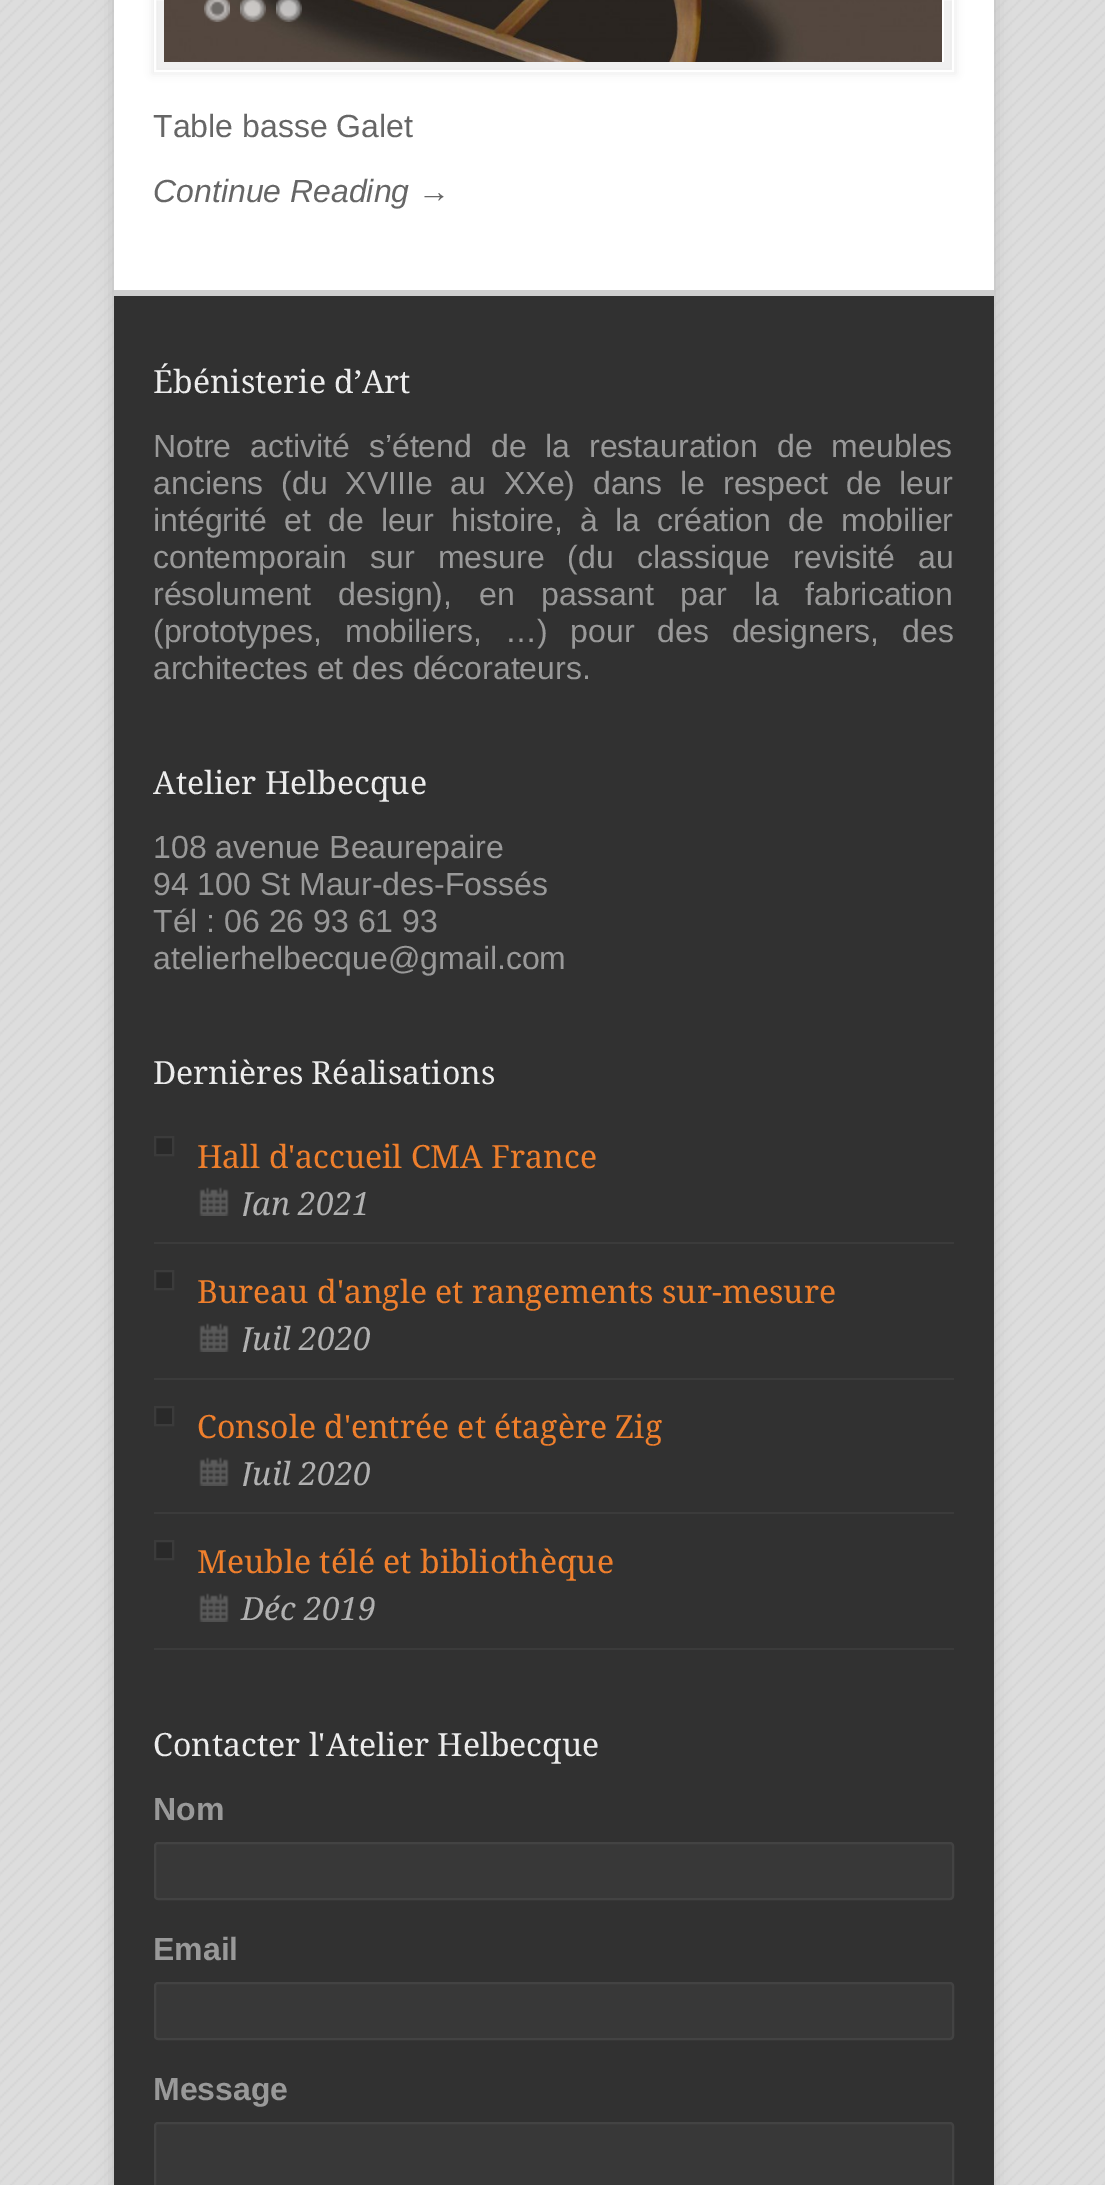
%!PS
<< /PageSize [1105 2185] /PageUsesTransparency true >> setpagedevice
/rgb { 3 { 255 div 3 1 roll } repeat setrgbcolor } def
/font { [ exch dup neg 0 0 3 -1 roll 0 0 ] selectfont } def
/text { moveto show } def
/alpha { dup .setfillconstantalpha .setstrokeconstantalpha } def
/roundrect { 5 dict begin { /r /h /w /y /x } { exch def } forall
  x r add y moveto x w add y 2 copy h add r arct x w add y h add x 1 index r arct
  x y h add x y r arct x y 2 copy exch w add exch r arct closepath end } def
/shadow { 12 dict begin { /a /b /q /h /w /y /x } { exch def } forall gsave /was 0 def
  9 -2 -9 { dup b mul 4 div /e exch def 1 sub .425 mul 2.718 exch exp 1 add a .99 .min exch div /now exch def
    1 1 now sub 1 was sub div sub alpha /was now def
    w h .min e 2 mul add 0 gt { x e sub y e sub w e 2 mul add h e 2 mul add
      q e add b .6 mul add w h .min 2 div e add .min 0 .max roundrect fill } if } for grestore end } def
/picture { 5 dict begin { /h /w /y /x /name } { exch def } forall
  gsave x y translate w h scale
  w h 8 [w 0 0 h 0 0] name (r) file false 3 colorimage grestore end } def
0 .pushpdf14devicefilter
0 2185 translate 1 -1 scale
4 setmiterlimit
221 221 221 rgb
0 0 1105 2185 rectfill
(img_01.rgb) 0 0 1105 2185 picture
187 187 187 rgb
114 -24 880 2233 0 8 1 shadow
255 255 255 rgb
114 0 880 290 rectfill
236 236 236 rgb
152 -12 804 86 0 4 1 shadow
240 240 240 rgb
158 0 792 68 rectfill
255 255 255 rgb
2 setlinewidth
155 -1 798 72 rectstroke
942 0 2 62 rectfill
(img_02.rgb) 164 0 778 62 picture
(img_03.rgb) 204 0 26 22 picture
(img_04.rgb) 240 0 26 22 picture
(img_05.rgb) 276 0 26 22 picture
49 49 49 rgb
114 296 880 1889 rectfill
207 207 207 rgb
114 290 880 6 rectfill
59 59 59 rgb
154 1242 800 2 rectfill
41 41 41 rgb
155 1137 moveto 18 0 rlineto 0 18 rlineto -18 0 rlineto closepath gsave fill grestore
59 59 59 rgb
stroke
(img_06.rgb) 199 1187 30 29 picture
154 1378 800 2 rectfill
41 41 41 rgb
155 1271 moveto 18 0 rlineto 0 18 rlineto -18 0 rlineto closepath gsave fill grestore
59 59 59 rgb
stroke
(img_06.rgb) 199 1323 30 29 picture
154 1512 800 2 rectfill
41 41 41 rgb
155 1407 moveto 18 0 rlineto 0 18 rlineto -18 0 rlineto closepath gsave fill grestore
59 59 59 rgb
stroke
(img_06.rgb) 199 1457 30 29 picture
154 1648 800 2 rectfill
41 41 41 rgb
155 1541 moveto 18 0 rlineto 0 18 rlineto -18 0 rlineto closepath gsave fill grestore
59 59 59 rgb
stroke
(img_06.rgb) 199 1593 30 29 picture
56 56 56 rgb
155 1843 798 56 3 roundrect gsave fill grestore
67 67 67 rgb
stroke
56 56 56 rgb
155 1983 798 56 3 roundrect gsave fill grestore
67 67 67 rgb
stroke
56 56 56 rgb
155 2123 798 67 3 roundrect gsave fill grestore
67 67 67 rgb
stroke
/LiberationSans-Regular 32 font
102 102 102 rgb
(Table basse Galet) 153 137 text
/LiberationSans-Italic 32 font
(Continue Reading →) 153 202 text
/DroidSerif-Regular 32 font
236 236 236 rgb
(Ébénisterie d’Art) 153 393 text
/LiberationSans-Regular 32 font
153 153 153 rgb
153 457 moveto 10 0 32 (Notre activité s’étend de la restauration de meubles) widthshow
153 494 moveto 9 0 32 (anciens \(du XVIIIe au XXe\) dans le respect de leur) widthshow
153 531 moveto 8.25 0 32 (intégrité et de leur histoire, à la création de mobilier) widthshow
153 568 moveto 14.25 0 32 (contemporain sur mesure \(du classique revisité au) widthshow
153 605 moveto 18 0 32 (résolument design\), en passant par la fabrication) widthshow
153 642 moveto 14 0 32 (\(prototypes, mobiliers, …\) pour des designers, des) widthshow
(architectes et des décorateurs.) 153 679 text
/DroidSerif-Regular 32 font
236 236 236 rgb
(Atelier Helbecque) 153 794 text
/LiberationSans-Regular 32 font
153 153 153 rgb
(108 avenue Beaurepaire) 153 858 text
(94 100 St Maur-des-Fossés) 153 895 text
(Tél : 06 26 93 61 93) 153 932 text
(atelierhelbecque@gmail.com) 153 969 text
/DroidSerif-Regular 32 font
236 236 236 rgb
(Dernières Réalisations) 153 1084 text
239 127 44 rgb
(Hall d'accueil CMA France) 197 1168 text
gsave
198 1140 756 76 rectclip
/DroidSerif-Italic 32 font
177 177 177 rgb
(Jan 2021) 241 1215 text
grestore
(Bureau d'angle et rangements sur-mesure) 197 1303 text
gsave
198 1274 756 78 rectclip
/DroidSerif-Italic 32 font
177 177 177 rgb
(Juil 2020) 241 1350 text
grestore
(Console d'entrée et étagère Zig) 197 1438 text
gsave
198 1410 756 76 rectclip
/DroidSerif-Italic 32 font
177 177 177 rgb
(Juil 2020) 241 1485 text
grestore
(Meuble télé et bibliothèque) 197 1573 text
/DroidSerif-Italic 32 font
177 177 177 rgb
(Déc 2019) 241 1620 text
/DroidSerif-Regular 32 font
236 236 236 rgb
(Contacter l'Atelier Helbecque) 153 1756 text
/LiberationSans-Bold 32 font
153 153 153 rgb
(Nom) 153 1820 text
(Email) 153 1960 text
(Message) 153 2100 text
.poppdf14devicefilter showpage
